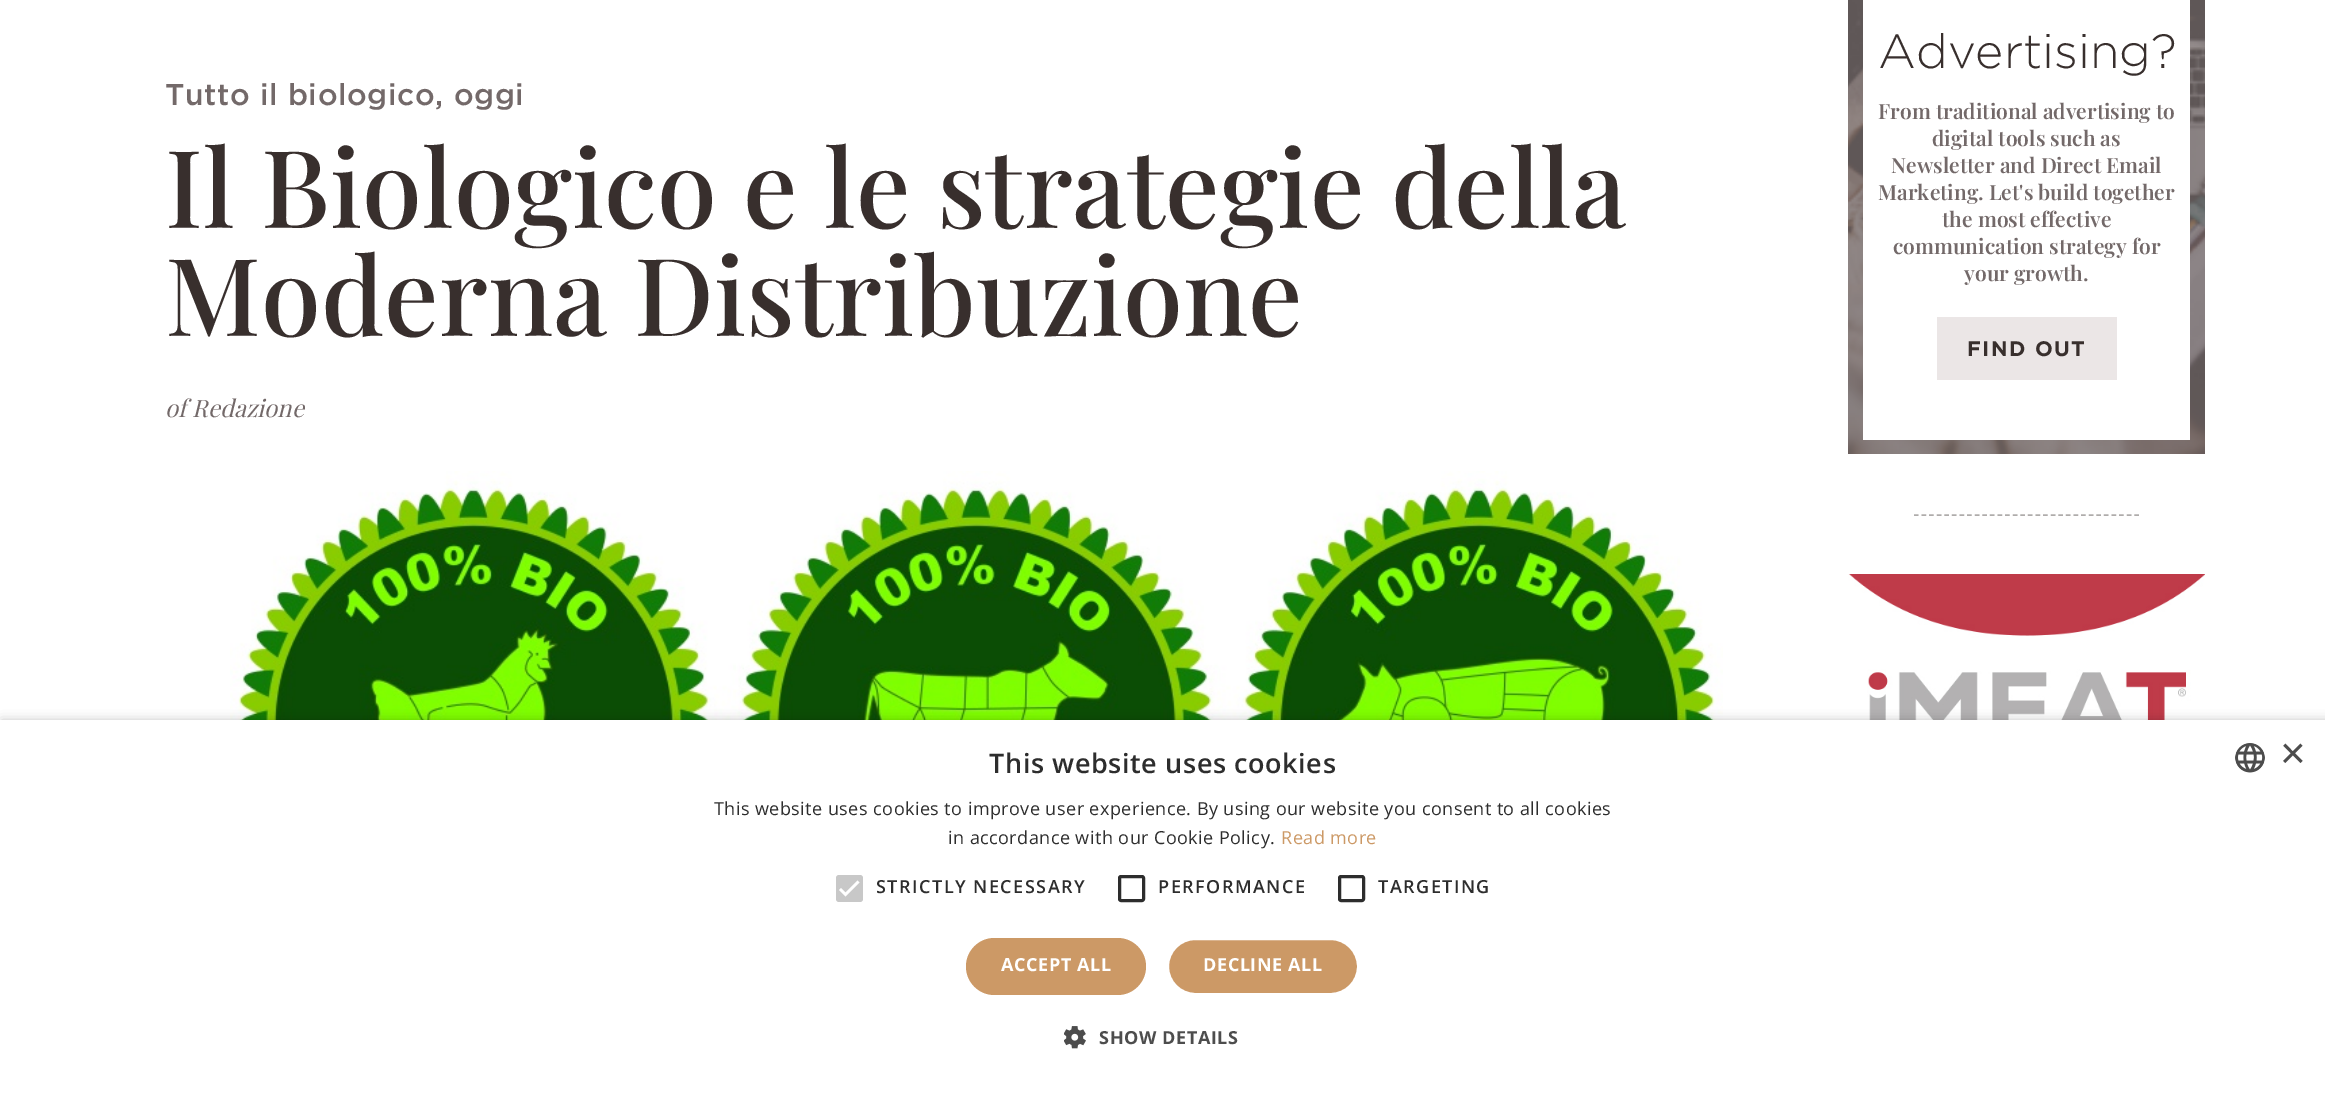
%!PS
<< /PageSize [2325 1095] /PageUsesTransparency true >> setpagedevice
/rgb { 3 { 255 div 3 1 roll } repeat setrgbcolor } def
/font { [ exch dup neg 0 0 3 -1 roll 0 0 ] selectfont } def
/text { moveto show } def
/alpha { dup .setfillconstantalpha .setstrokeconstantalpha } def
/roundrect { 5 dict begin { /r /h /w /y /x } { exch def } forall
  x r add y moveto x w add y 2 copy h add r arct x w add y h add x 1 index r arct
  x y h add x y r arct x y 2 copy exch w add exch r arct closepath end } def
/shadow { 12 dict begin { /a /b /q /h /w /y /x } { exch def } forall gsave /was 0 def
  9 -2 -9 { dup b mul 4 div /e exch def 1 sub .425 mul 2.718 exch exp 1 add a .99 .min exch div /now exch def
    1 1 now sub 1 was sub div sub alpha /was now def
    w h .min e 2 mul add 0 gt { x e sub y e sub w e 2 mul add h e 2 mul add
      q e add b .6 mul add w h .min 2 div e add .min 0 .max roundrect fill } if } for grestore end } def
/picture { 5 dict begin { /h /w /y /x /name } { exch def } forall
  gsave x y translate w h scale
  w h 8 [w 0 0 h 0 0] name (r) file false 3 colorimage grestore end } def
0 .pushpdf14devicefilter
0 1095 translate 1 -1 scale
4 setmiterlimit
255 255 255 rgb
0 0 2325 1095 rectfill
(img_01.rgb) 230 471 1493 249 picture
(img_02.rgb) 1848 0 357 454 picture
1863 0 327 440 rectfill
235 230 230 rgb
1937 317 180 63 rectfill
175 172 171 rgb
1.5 setlinewidth
[4.5 3.1] 0 setdash
1914 515 moveto 225 0 rlineto stroke
(img_03.rgb) 1848 574 357 146 picture
0 0 0 rgb
2 723 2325 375 0 6 0.35 shadow
255 255 255 rgb
0 720 2325 375 rectfill
(img_04.rgb) 2235 743 30 30 picture
200 200 200 rgb
836 875 27 27 3 roundrect fill
255 255 255 rgb
2.7 setlinewidth
[] 0 setdash
840 889 moveto 5.5 5.5 rlineto 13 -13 rlineto stroke
45 45 45 rgb
3 setlinewidth
1119.5 876.5 24 24 1.5 roundrect stroke
1339.5 876.5 24 24 1.5 roundrect stroke
204 153 102 rgb
966 938 180 57 28.5 roundrect fill
1168 939 190 55 27.5 roundrect gsave fill grestore
255 255 255 rgb
2 setlinewidth
stroke
(img_05.rgb) 1064 1026 22 23 picture
/Gotham-Medium 30 font
115 105 105 rgb
165 105 moveto 0.6 0 (Tutto il biologico, oggi) ashow
/PlayfairDisplay-Medium 108 font
56 47 45 rgb
(Il Biologico e le strategie della) 165 228 text
(Moderna Distribuzione) 165 336 text
/PlayfairDisplay-Italic 24 font
115 105 105 rgb
(of Redazione) 165 417 text
/Gotham-Light 48 font
56 47 45 rgb
(Advertising?) 1878 68 text
/PlayfairDisplay-SemiBold 21 font
115 105 105 rgb
(From traditional advertising to) 1878 119 text
(digital tools such as) 1932 146 text
(Newsletter and Direct Email) 1891 173 text
(Marketing. Let's build together) 1878 200 text
(the most effective) 1942 227 text
(communication strategy for) 1893 254 text
(your growth.) 1964 281 text
/Gotham-Bold 21 font
56 47 45 rgb
1967 356 moveto 1.5 0 (FIND OUT) ashow
/OpenSans-SemiBold 27 font
45 45 45 rgb
989 773 moveto 0.6 0 (This website uses cookies) ashow
/LiberationSans-Regular 44 font
77 77 77 rgb
(×) 2280 768 text
/OpenSans-Regular 18 font
45 45 45 rgb
714 815 moveto 0.45 0 (This website uses cookies to improve user experience. By using our website you consent to all cookies) ashow
948 844 moveto 0.45 0 (in accordance with our Cookie Policy.) ashow
204 153 102 rgb
1281 844 moveto 0.45 0 (Read more) ashow
/OpenSans-SemiBold 18 font
45 45 45 rgb
876 893 moveto 1.5 0 (STRICTLY NECESSARY) ashow
1158 893 moveto 1.5 0 (PERFORMANCE) ashow
1378 893 moveto 1.5 0 (TARGETING) ashow
/OpenSans-Bold 18 font
255 255 255 rgb
1001 971 moveto 0.6 0 (ACCEPT ALL) ashow
1203 971 moveto 0.6 0 (DECLINE ALL) ashow
77 77 77 rgb
1099 1044 moveto 0.6 0 (SHOW DETAILS) ashow
.poppdf14devicefilter showpage
